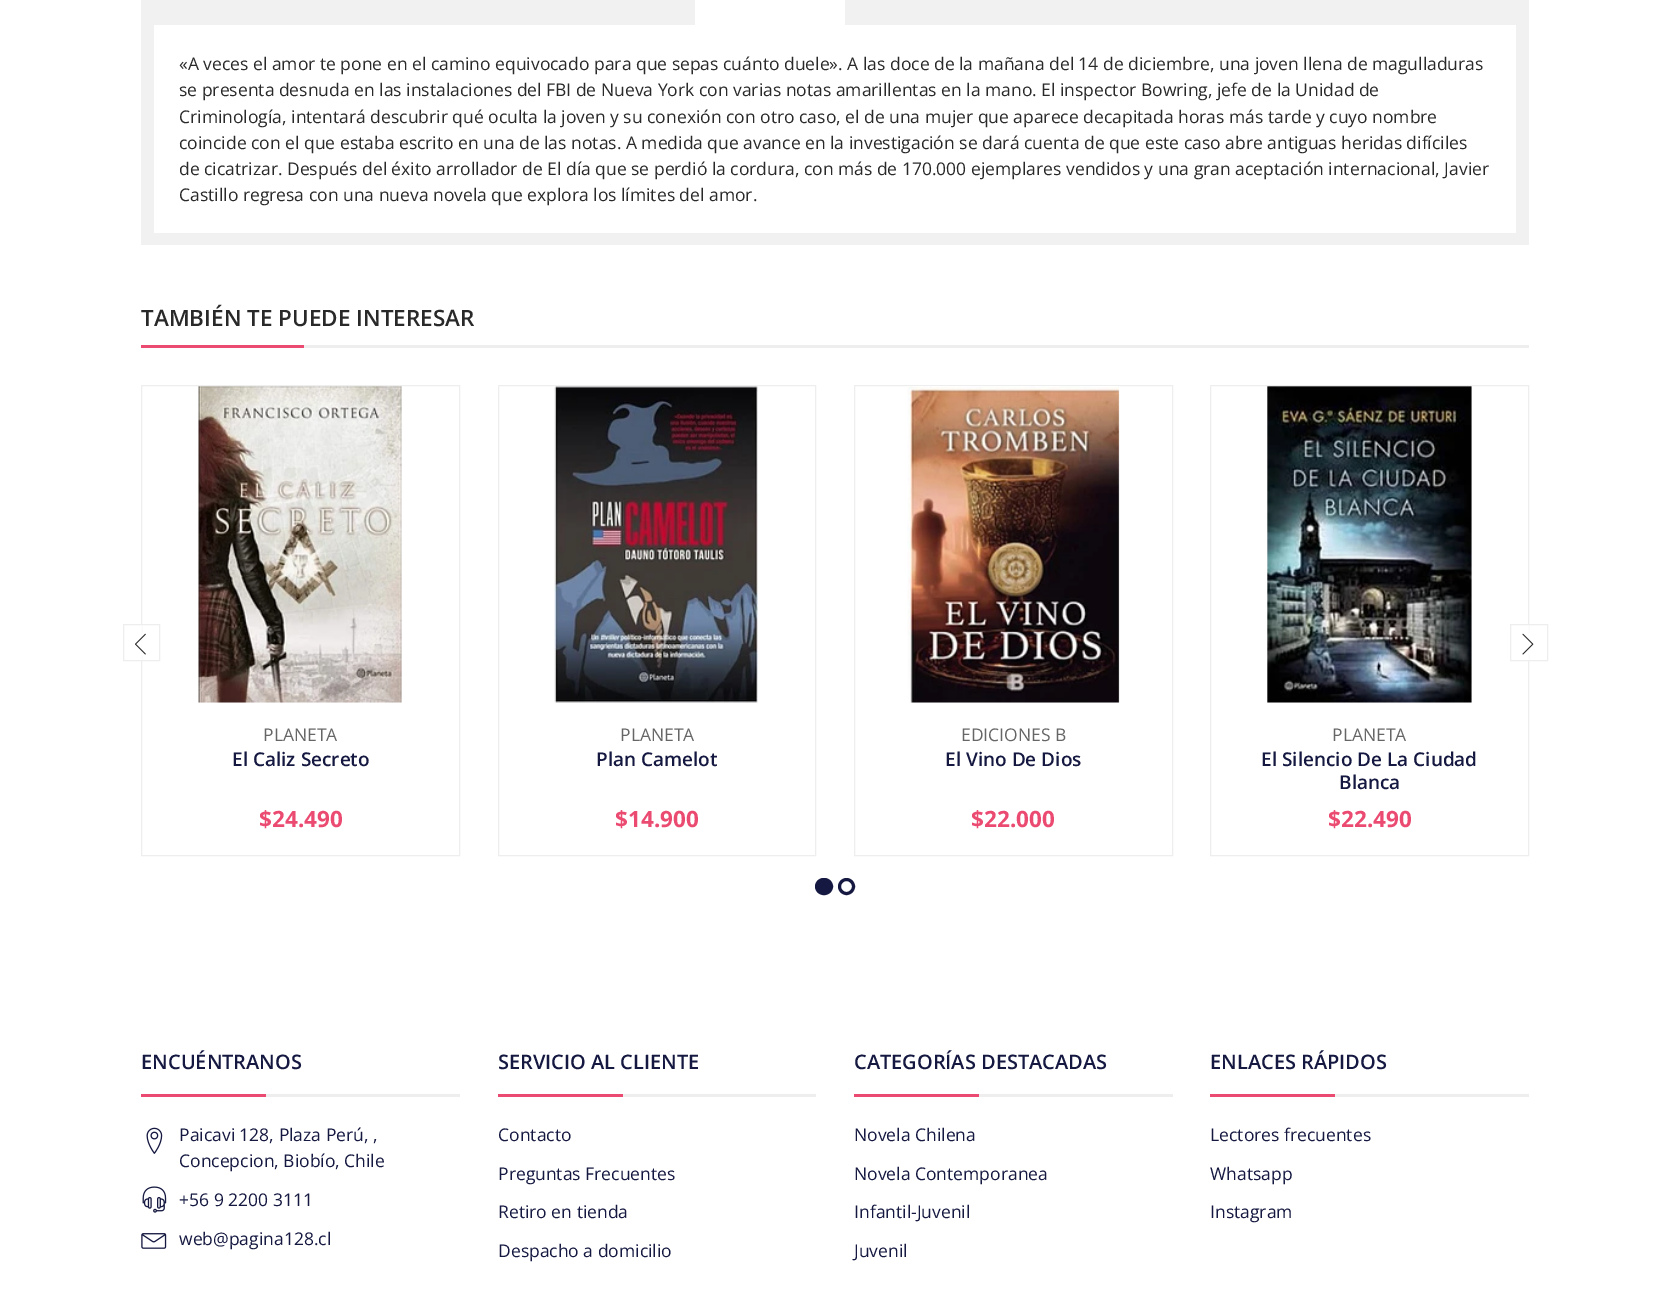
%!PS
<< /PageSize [1670 1307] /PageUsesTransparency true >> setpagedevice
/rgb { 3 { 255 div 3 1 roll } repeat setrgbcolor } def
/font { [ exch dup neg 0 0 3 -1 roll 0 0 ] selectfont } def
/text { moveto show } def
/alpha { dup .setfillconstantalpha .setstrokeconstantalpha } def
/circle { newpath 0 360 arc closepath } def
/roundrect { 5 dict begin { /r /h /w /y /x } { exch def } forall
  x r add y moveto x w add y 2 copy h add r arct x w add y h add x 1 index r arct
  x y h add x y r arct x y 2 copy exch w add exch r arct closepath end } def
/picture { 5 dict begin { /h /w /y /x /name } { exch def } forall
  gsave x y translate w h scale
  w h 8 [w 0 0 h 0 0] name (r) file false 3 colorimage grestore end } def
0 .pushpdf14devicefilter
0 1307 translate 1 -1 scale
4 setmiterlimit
255 255 255 rgb
0 0 1670 1307 rectfill
241 241 241 rgb
141 0 1388 245 rectfill
255 255 255 rgb
695 0 150 25 rectfill
154 25 1362 208 rectfill
238 238 238 rgb
304 345 1225 3 rectfill
235 74 113 rgb
141 345 163 3 rectfill
238 238 238 rgb
141.5 385.5 318 470 rectstroke
0.9 alpha
255 255 255 rgb
141 625 1 35 rectfill
1 alpha
238 238 238 rgb
123.5 624.5 36 36 rectstroke
(img_01.rgb) 135 633 11 22 picture
1210.5 385.5 318 470 rectstroke
0.9 alpha
255 255 255 rgb
1528 625 1 35 rectfill
1 alpha
238 238 238 rgb
1510.5 624.5 37 36 rectstroke
(img_02.rgb) 1522 633 12 22 picture
(img_03.rgb) 198 386 204 317 picture
498.5 385.5 317 470 rectstroke
(img_04.rgb) 554 386 204 317 picture
854.5 385.5 318 470 rectstroke
(img_05.rgb) 907 386 213 317 picture
(img_06.rgb) 1267 386 205 317 picture
21 24 64 rgb
816.5 879.5 15 14 7 roundrect gsave fill grestore
3 setlinewidth
stroke
846.5 886.5 7 circle stroke
238 238 238 rgb
266 1094 194 3 rectfill
235 74 113 rgb
141 1094 125 3 rectfill
(img_07.rgb) 146 1127 17 27 picture
(img_08.rgb) 142 1186 25 27 picture
(img_09.rgb) 141 1233 26 16 picture
238 238 238 rgb
623 1094 193 3 rectfill
235 74 113 rgb
498 1094 125 3 rectfill
238 238 238 rgb
979 1094 194 3 rectfill
235 74 113 rgb
854 1094 125 3 rectfill
238 238 238 rgb
1335 1094 194 3 rectfill
235 74 113 rgb
1210 1094 125 3 rectfill
/OpenSans-Regular 17.5 font
41 41 41 rgb
(«A veces el amor te pone en el camino equivocado para que sepas cuánto duele». A las doce de la mañana del 14 de diciembre, una joven llena de magulladuras) 179 70 text
(se presenta desnuda en las instalaciones del FBI de Nueva York con varias notas amarillentas en la mano. El inspector Bowring, jefe de la Unidad de) 179 96 text
(Criminología, intentará descubrir qué oculta la joven y su conexión con otro caso, el de una mujer que aparece decapitada horas más tarde y cuyo nombre) 179 123 text
(coincide con el que estaba escrito en una de las notas. A medida que avance en la investigación se dará cuenta de que este caso abre antiguas heridas difíciles) 179 149 text
(de cicatrizar. Después del éxito arrollador de El día que se perdió la cordura, con más de 170.000 ejemplares vendidos y una gran aceptación internacional, Javier) 179 175 text
(Castillo regresa con una nueva novela que explora los límites del amor.) 179 201 text
/OpenSans-SemiBold 22.5 font
(TAMBIÉN TE PUEDE INTERESAR) 141 326 text
/OpenSans-Regular 17.5 font
102 102 102 rgb
(PLANETA) 263 741 text
/OpenSans-SemiBold 19 font
21 24 64 rgb
(El Caliz Secreto) 232 766 text
/OpenSans-Bold 22.5 font
235 74 113 rgb
($24.490) 259 827 text
/OpenSans-Regular 17.5 font
102 102 102 rgb
(PLANETA) 620 741 text
/OpenSans-SemiBold 19 font
21 24 64 rgb
(Plan Camelot) 596 766 text
/OpenSans-Bold 22.5 font
235 74 113 rgb
($14.900) 615 827 text
/OpenSans-Regular 17.5 font
102 102 102 rgb
(EDICIONES B) 961 741 text
/OpenSans-SemiBold 19 font
21 24 64 rgb
(El Vino De Dios) 945 766 text
/OpenSans-Bold 22.5 font
235 74 113 rgb
($22.000) 971 827 text
/OpenSans-Regular 17.5 font
102 102 102 rgb
(PLANETA) 1332 741 text
/OpenSans-SemiBold 19 font
21 24 64 rgb
(El Silencio De La Ciudad) 1261 766 text
(Blanca) 1339 789 text
/OpenSans-Bold 22.5 font
235 74 113 rgb
($22.490) 1328 827 text
/OpenSans-SemiBold 20 font
21 24 64 rgb
(ENCUÉNTRANOS) 141 1069 text
/OpenSans-Regular 17.5 font
(Paicavi 128, Plaza Perú, ,) 179 1141 text
(Concepcion, Biobío, Chile) 179 1167 text
(+56 9 2200 3111) 179 1206 text
(web@pagina128.cl) 179 1245 text
/OpenSans-SemiBold 20 font
(SERVICIO AL CLIENTE) 498 1069 text
/OpenSans-Regular 17.5 font
(Contacto) 498 1141 text
(Preguntas Frecuentes) 498 1180 text
(Retiro en tienda) 498 1218 text
(Despacho a domicilio) 498 1257 text
/OpenSans-SemiBold 20 font
(CATEGORÍAS DESTACADAS) 854 1069 text
/OpenSans-Regular 17.5 font
(Novela Chilena) 854 1141 text
(Novela Contemporanea) 854 1180 text
(Infantil-Juvenil) 854 1218 text
(Juvenil) 854 1257 text
/OpenSans-SemiBold 20 font
(ENLACES RÁPIDOS) 1210 1069 text
/OpenSans-Regular 17.5 font
(Lectores frecuentes) 1210 1141 text
(Whatsapp) 1210 1180 text
(Instagram) 1210 1218 text
.poppdf14devicefilter showpage
